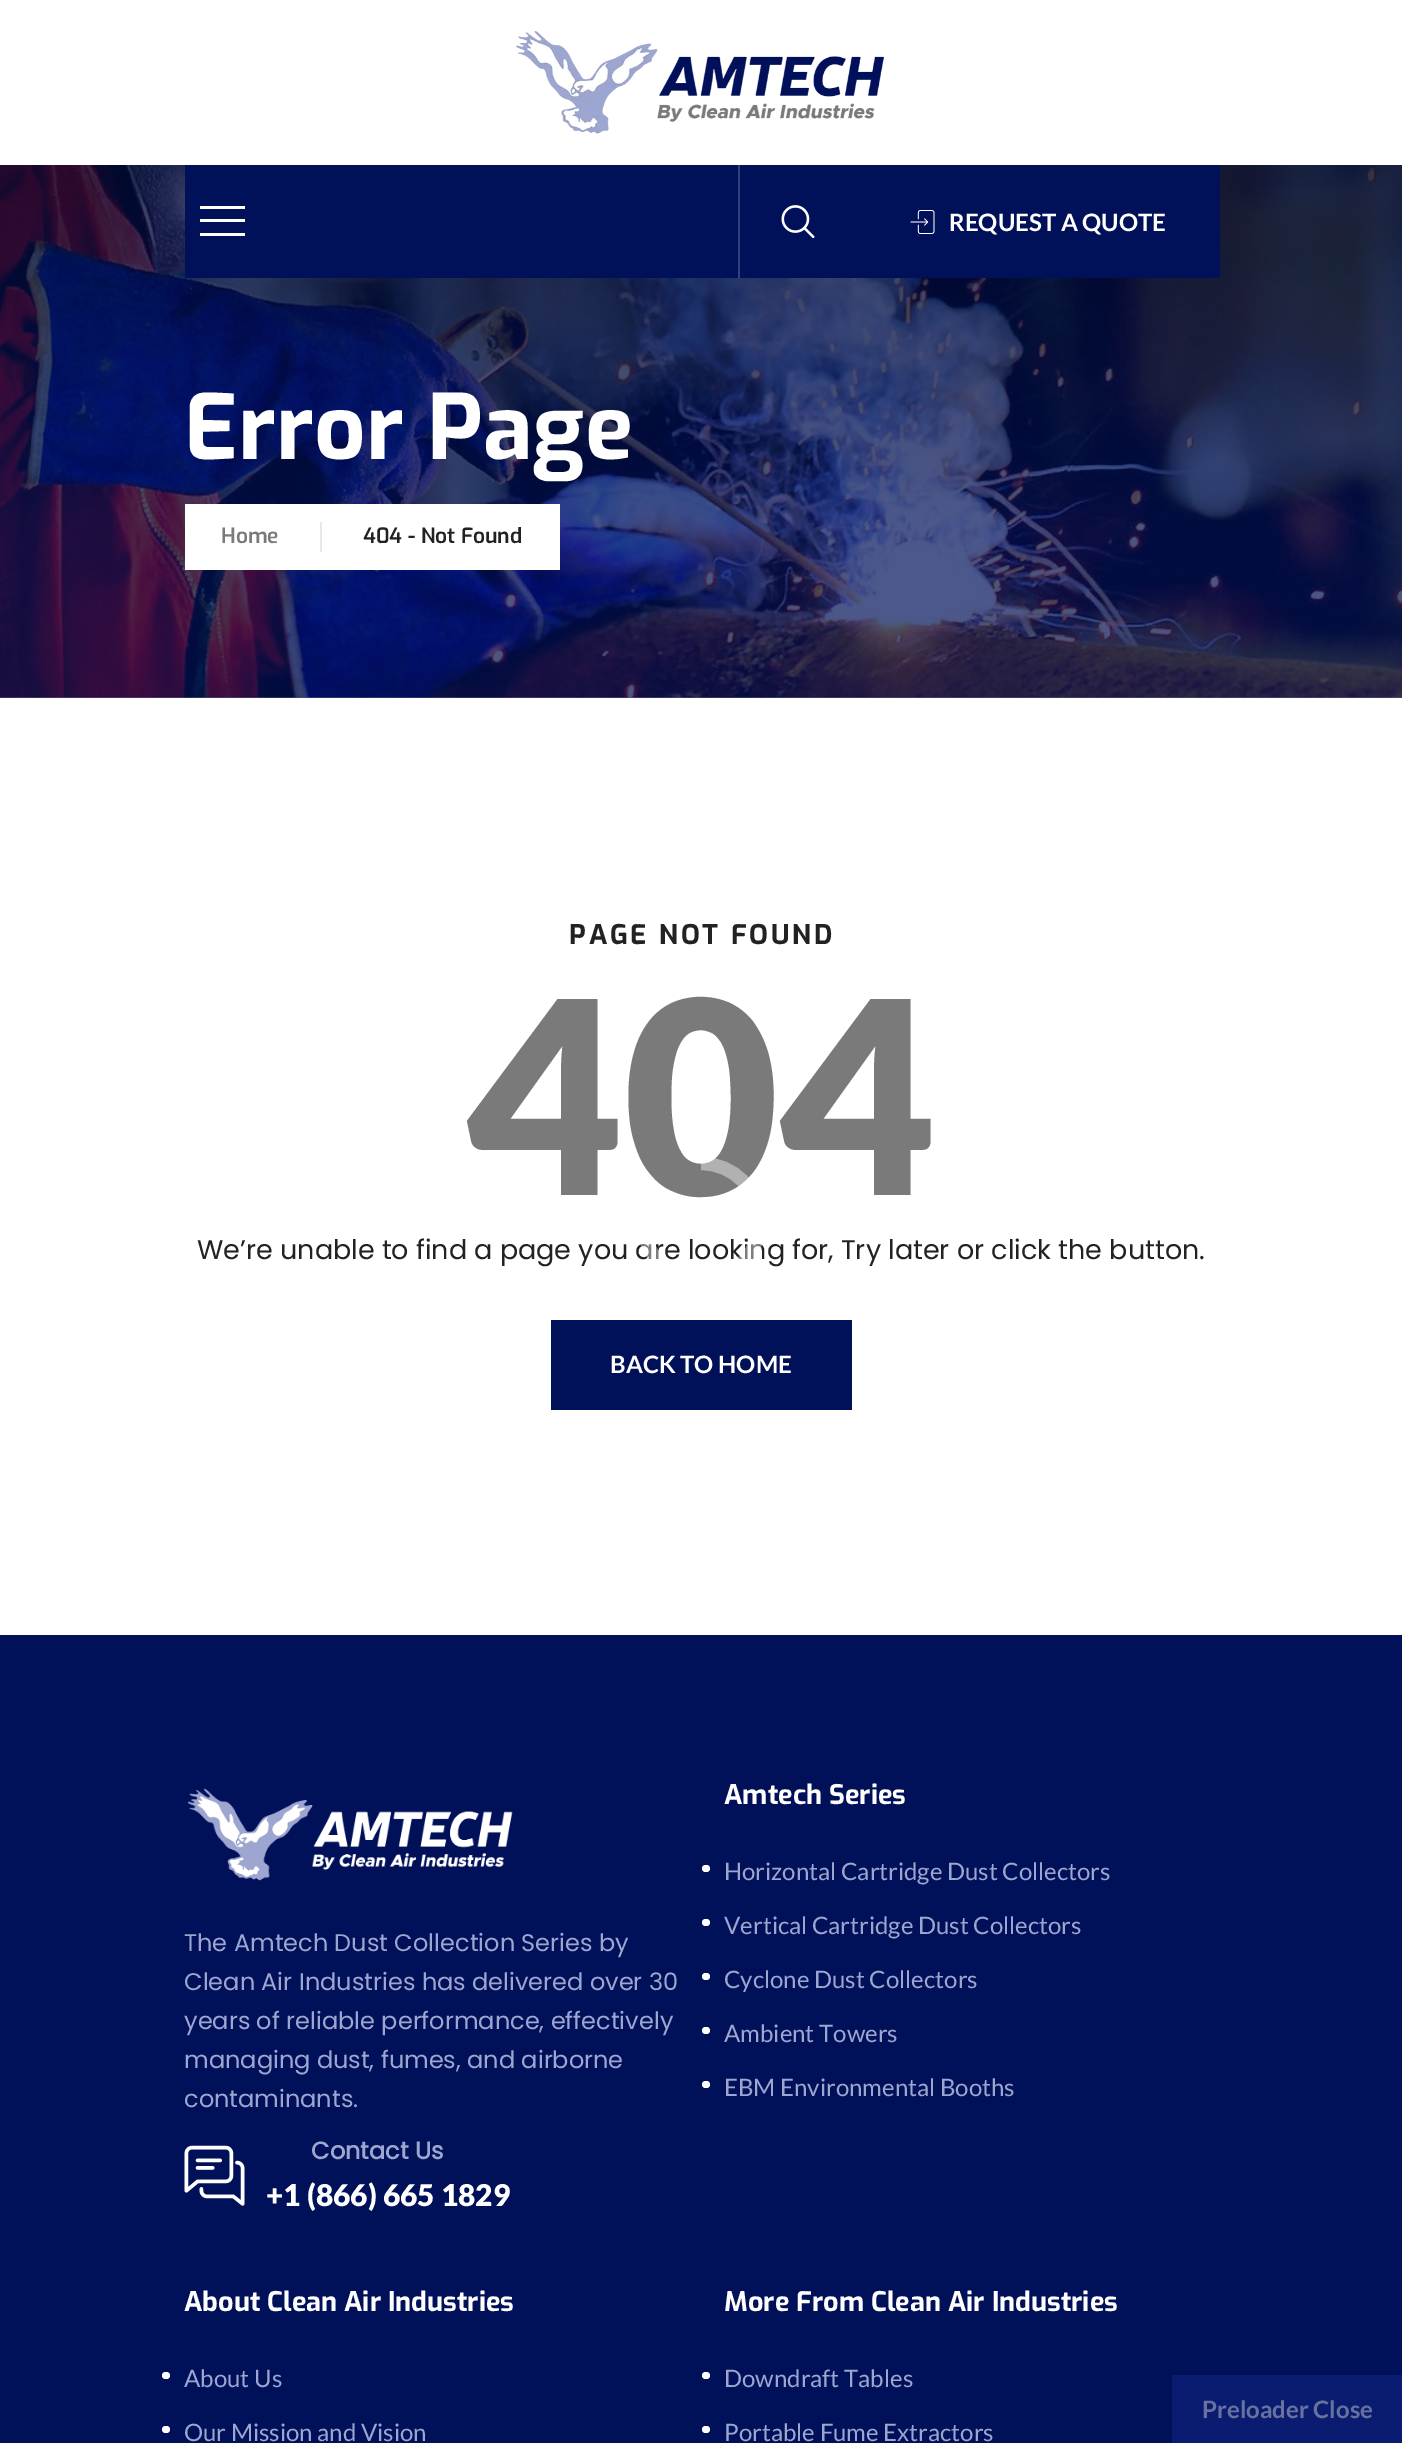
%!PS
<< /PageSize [1402 2443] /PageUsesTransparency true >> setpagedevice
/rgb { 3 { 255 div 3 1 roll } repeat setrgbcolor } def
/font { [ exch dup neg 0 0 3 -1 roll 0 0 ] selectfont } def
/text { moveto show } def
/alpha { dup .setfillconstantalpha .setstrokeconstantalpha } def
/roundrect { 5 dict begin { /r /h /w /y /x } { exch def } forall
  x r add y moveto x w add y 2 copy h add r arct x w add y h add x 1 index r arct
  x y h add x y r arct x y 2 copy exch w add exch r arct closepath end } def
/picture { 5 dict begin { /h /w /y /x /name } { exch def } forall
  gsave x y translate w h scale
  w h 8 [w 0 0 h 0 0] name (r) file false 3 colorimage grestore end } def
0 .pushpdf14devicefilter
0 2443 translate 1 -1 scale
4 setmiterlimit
255 255 255 rgb
0 0 1402 2443 rectfill
77 88 139 rgb
0 697 1402 1 rectfill
(img_01.rgb) 516 31 368 103 picture
(img_04.rgb) 0 165 1402 533 picture
0 16 89 rgb
185 165 1035 113 rectfill
255 255 255 rgb
200 206 45 3 rectfill
200 219 45 3 rectfill
200 233 45 3 rectfill
51 64 122 rgb
738 165 2 113 rectfill
(img_02.rgb) 781 205 34 34 picture
(img_03.rgb) 910 210 25 24 picture
255 255 255 rgb
185 504 375 66 rectfill
232 232 232 rgb
320 522 2 30 rectfill
0 16 89 rgb
551 1320 301 90 rectfill
0 1635 1402 808 rectfill
(img_05.rgb) 187 1788 326 93 picture
(img_06.rgb) 184 2145 61 61 picture
255 255 255 rgb
702 1865 8 7 3.5 roundrect fill
702 1919 8 7 3.5 roundrect fill
702 1973 8 7 3.5 roundrect fill
702 2027 8 7 3.5 roundrect fill
702 2081 8 7 3.5 roundrect fill
162 2372 8 7 3.5 roundrect fill
162 2426 8 7 3.5 roundrect fill
702 2372 8 7 3.5 roundrect fill
702 2426 8 7 3.5 roundrect fill
10 27 114 rgb
1172 2375 230 68 rectfill
/Lato-Bold 24 font
255 255 255 rgb
(REQUEST A QUOTE) 949 231 text
/Exo-Bold 90 font
(Error Page) 184 459 text
/Exo-SemiBold 21 font
122 122 122 rgb
(Home) 221 543 text
34 34 34 rgb
(404 - Not Found) 363 543 text
/Exo-Bold 27 font
569 944 moveto 2.75 0 (PAGE NOT FOUND) ashow
/Lato-Black 270 font
122 122 122 rgb
(404) 466 1195 text
/Poppins-Regular 27 font
34 34 34 rgb
(We’re unable to find a page you are looking for, Try later or click the button.) 197 1259 text
/Lato-Bold 24 font
255 255 255 rgb
(BACK TO HOME) 610 1373 text
/Poppins-Regular 24 font
157 166 208 rgb
(The Amtech Dust Collection Series by) 184 1951 text
(Clean Air Industries has delivered over 30) 184 1990 text
(years of reliable performance, effectively) 184 2029 text
(managing dust, fumes, and airborne) 184 2068 text
(contaminants.) 184 2107 text
/Poppins-Bold 24 font
(Contact Us) 311 2159 text
/Lato-Black 30 font
255 255 255 rgb
(+1 \(866\) 665 1829) 266 2206 text
/Exo-Bold 27 font
(Amtech Series) 724 1804 text
/Lato-Regular 24 font
157 166 208 rgb
(Horizontal Cartridge Dust Collectors) 724 1880 text
(Vertical Cartridge Dust Collectors) 724 1934 text
(Cyclone Dust Collectors) 724 1988 text
(Ambient Towers) 724 2042 text
(EBM Environmental Booths) 724 2096 text
/Exo-Bold 27 font
255 255 255 rgb
(About Clean Air Industries) 184 2311 text
/Lato-Regular 24 font
157 166 208 rgb
(About Us) 184 2387 text
(Our Mission and Vision) 184 2441 text
/Exo-Bold 27 font
255 255 255 rgb
(More From Clean Air Industries) 724 2311 text
/Lato-Regular 24 font
157 166 208 rgb
(Downdraft Tables) 724 2387 text
(Portable Fume Extractors) 724 2441 text
0.41 alpha
255 255 255 rgb
13.3 setlinewidth
701 1163.5 moveto 32.5 0 58.5 26 58.5 58.5 rcurveto 0 32 -26 58 -58.5 58 rcurveto -32 0 -58 -26 -58 -58 rcurveto 0 -0.5 rlineto stroke
/Lato-Bold 24 font
1 alpha
105 114 157 rgb
(Preloader Close) 1202 2418 text
.poppdf14devicefilter showpage
